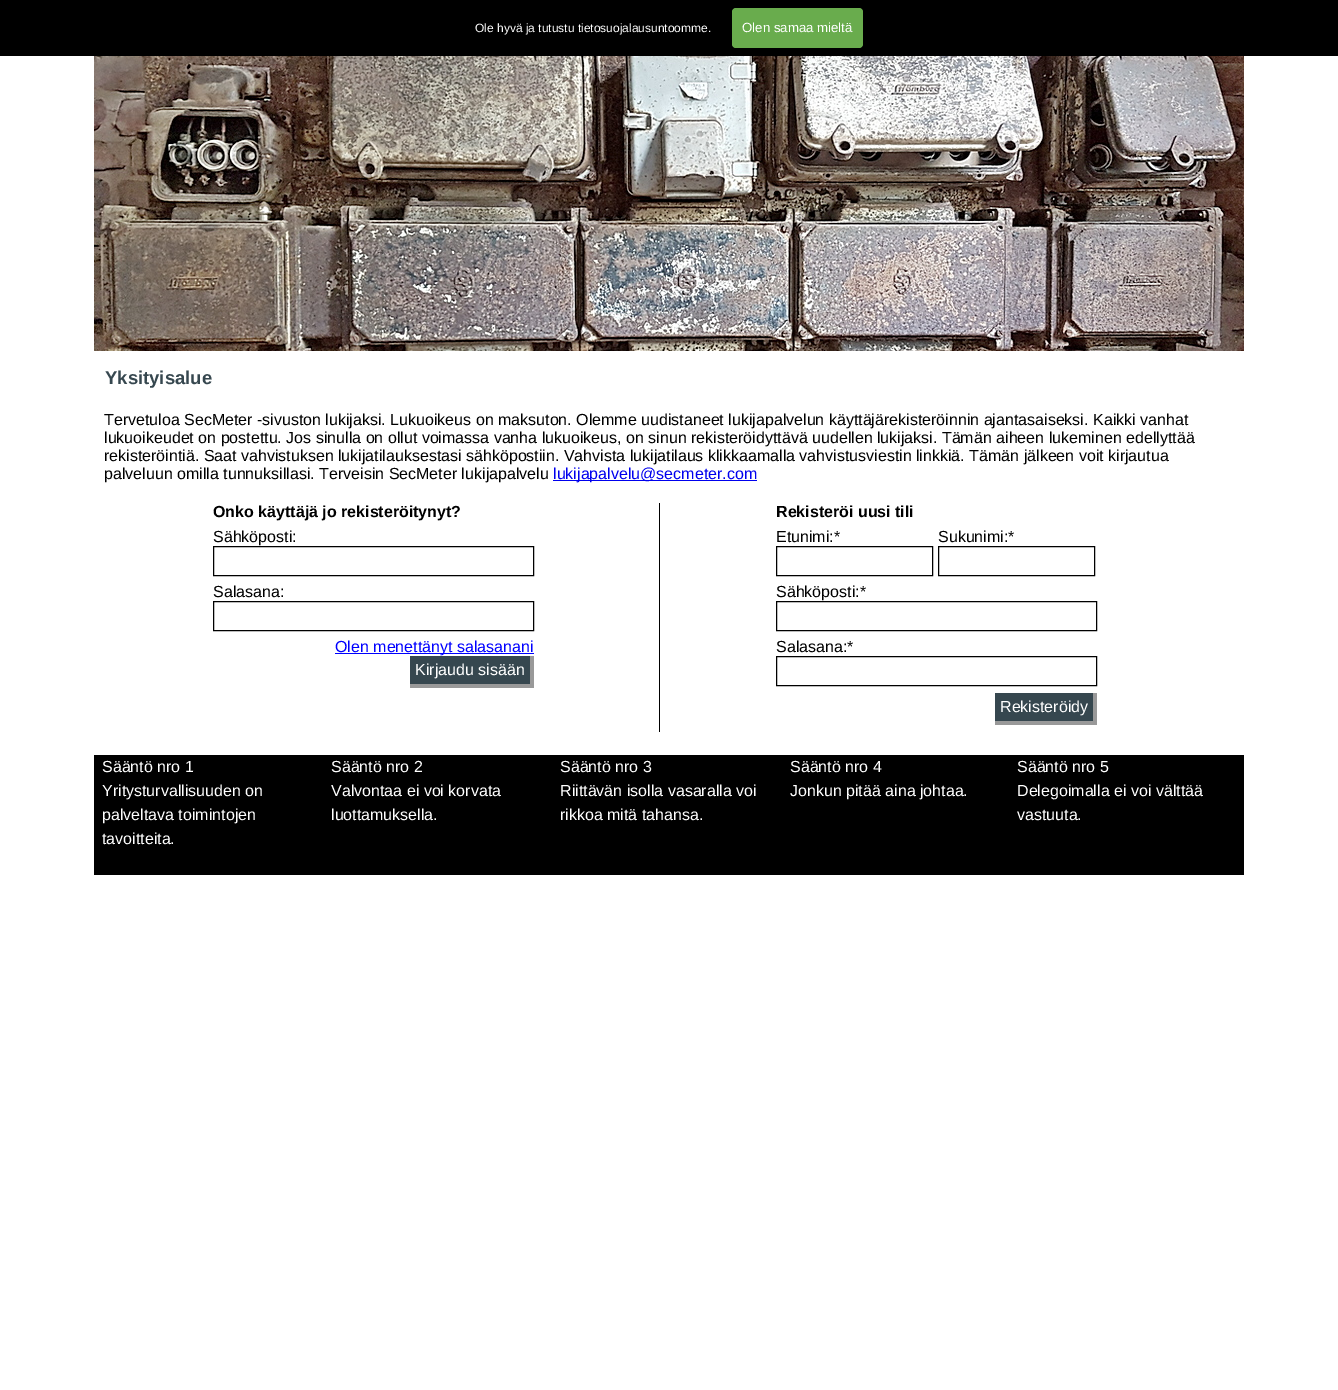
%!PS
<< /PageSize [1338 1390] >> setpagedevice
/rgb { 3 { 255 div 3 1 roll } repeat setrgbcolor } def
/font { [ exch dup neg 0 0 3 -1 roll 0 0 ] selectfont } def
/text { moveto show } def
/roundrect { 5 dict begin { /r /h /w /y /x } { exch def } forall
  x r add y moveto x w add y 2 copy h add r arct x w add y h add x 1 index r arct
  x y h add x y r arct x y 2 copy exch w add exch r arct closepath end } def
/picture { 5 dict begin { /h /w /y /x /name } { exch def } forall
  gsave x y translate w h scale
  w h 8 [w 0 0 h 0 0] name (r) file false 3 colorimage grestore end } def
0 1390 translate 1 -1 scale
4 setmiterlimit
255 255 255 rgb
0 0 1338 1390 rectfill
0 0 0 rgb
0 0 1338 56 rectfill
105 172 77 rgb
732 8 131 40 4 roundrect fill
(img_01.rgb) 94 56 1150 295 picture
0 0 238 rgb
553 480 204 1 rectfill
0 0 0 rgb
213.5 546.5 320 29 rectstroke
213.5 601.5 320 29 rectstroke
0 0 255 rgb
335 653 199 1 rectfill
54 71 79 rgb
410 656 120 28 rectfill
153 153 153 rgb
530 656 4 32 rectfill
410 684 124 4 rectfill
0 0 0 rgb
659 503 1 229 rectfill
776.5 546.5 156 29 rectstroke
938.5 546.5 156 29 rectstroke
776.5 601.5 320 29 rectstroke
776.5 656.5 320 29 rectstroke
54 71 79 rgb
995 693 98 28 rectfill
153 153 153 rgb
1093 693 4 32 rectfill
995 721 102 4 rectfill
0 0 0 rgb
94 755 1150 120 rectfill
/LiberationSans-Regular 12 font
255 255 255 rgb
(Ole hyvä ja tutustu tietosuojalausuntoomme.) 475 32 text
/LiberationSans-Regular 13.25 font
(Olen samaa mieltä) 742 32 text
/LiberationSans-Bold 18.5 font
54 71 79 rgb
(Yksityisalue) 105 384 text
/LiberationSans-Regular 16 font
0 0 0 rgb
(Tervetuloa SecMeter -sivuston lukijaksi. Lukuoikeus on maksuton. Olemme uudistaneet lukijapalvelun käyttäjärekisteröinnin ajantasaiseksi. Kaikki vanhat) 104 425 text
(lukuoikeudet on postettu. Jos sinulla on ollut voimassa vanha lukuoikeus, on sinun rekisteröidyttävä uudellen lukijaksi. Tämän aiheen lukeminen edellyttää) 104 443 text
(rekisteröintiä. Saat vahvistuksen lukijatilauksestasi sähköpostiin. Vahvista lukijatilaus klikkaamalla vahvistusviestin linkkiä. Tämän jälkeen voit kirjautua) 104 461 text
(palveluun omilla tunnuksillasi. Terveisin SecMeter lukijapalvelu) 104 479 text
0 0 238 rgb
(lukijapalvelu@secmeter.com) 553 479 text
/LiberationSans-Bold 16 font
0 0 0 rgb
(Onko käyttäjä jo rekisteröitynyt?) 213 517 text
/LiberationSans-Regular 16 font
(Sähköposti:) 213 542 text
(Salasana:) 213 597 text
0 0 255 rgb
(Olen menettänyt salasanani) 335 652 text
255 255 255 rgb
(Kirjaudu sisään) 415 675 text
/LiberationSans-Bold 16 font
0 0 0 rgb
(Rekisteröi uusi tili) 776 517 text
/LiberationSans-Regular 16 font
(Etunimi:*) 776 542 text
(Sukunimi:*) 938 542 text
(Sähköposti:*) 776 597 text
(Salasana:*) 776 652 text
255 255 255 rgb
(Rekisteröidy) 1000 712 text
(Sääntö nro 1) 102 772 text
(Yritysturvallisuuden on) 102 796 text
(palveltava toimintojen) 102 820 text
(tavoitteita.) 102 844 text
(Sääntö nro 2) 331 772 text
(Valvontaa ei voi korvata) 331 796 text
(luottamuksella.) 331 820 text
(Sääntö nro 3) 560 772 text
(Riittävän isolla vasaralla voi) 560 796 text
(rikkoa mitä tahansa.) 560 820 text
(Sääntö nro 4) 790 772 text
(Jonkun pitää aina johtaa.) 790 796 text
(Sääntö nro 5) 1017 772 text
(Delegoimalla ei voi välttää) 1017 796 text
(vastuuta.) 1017 820 text
showpage
